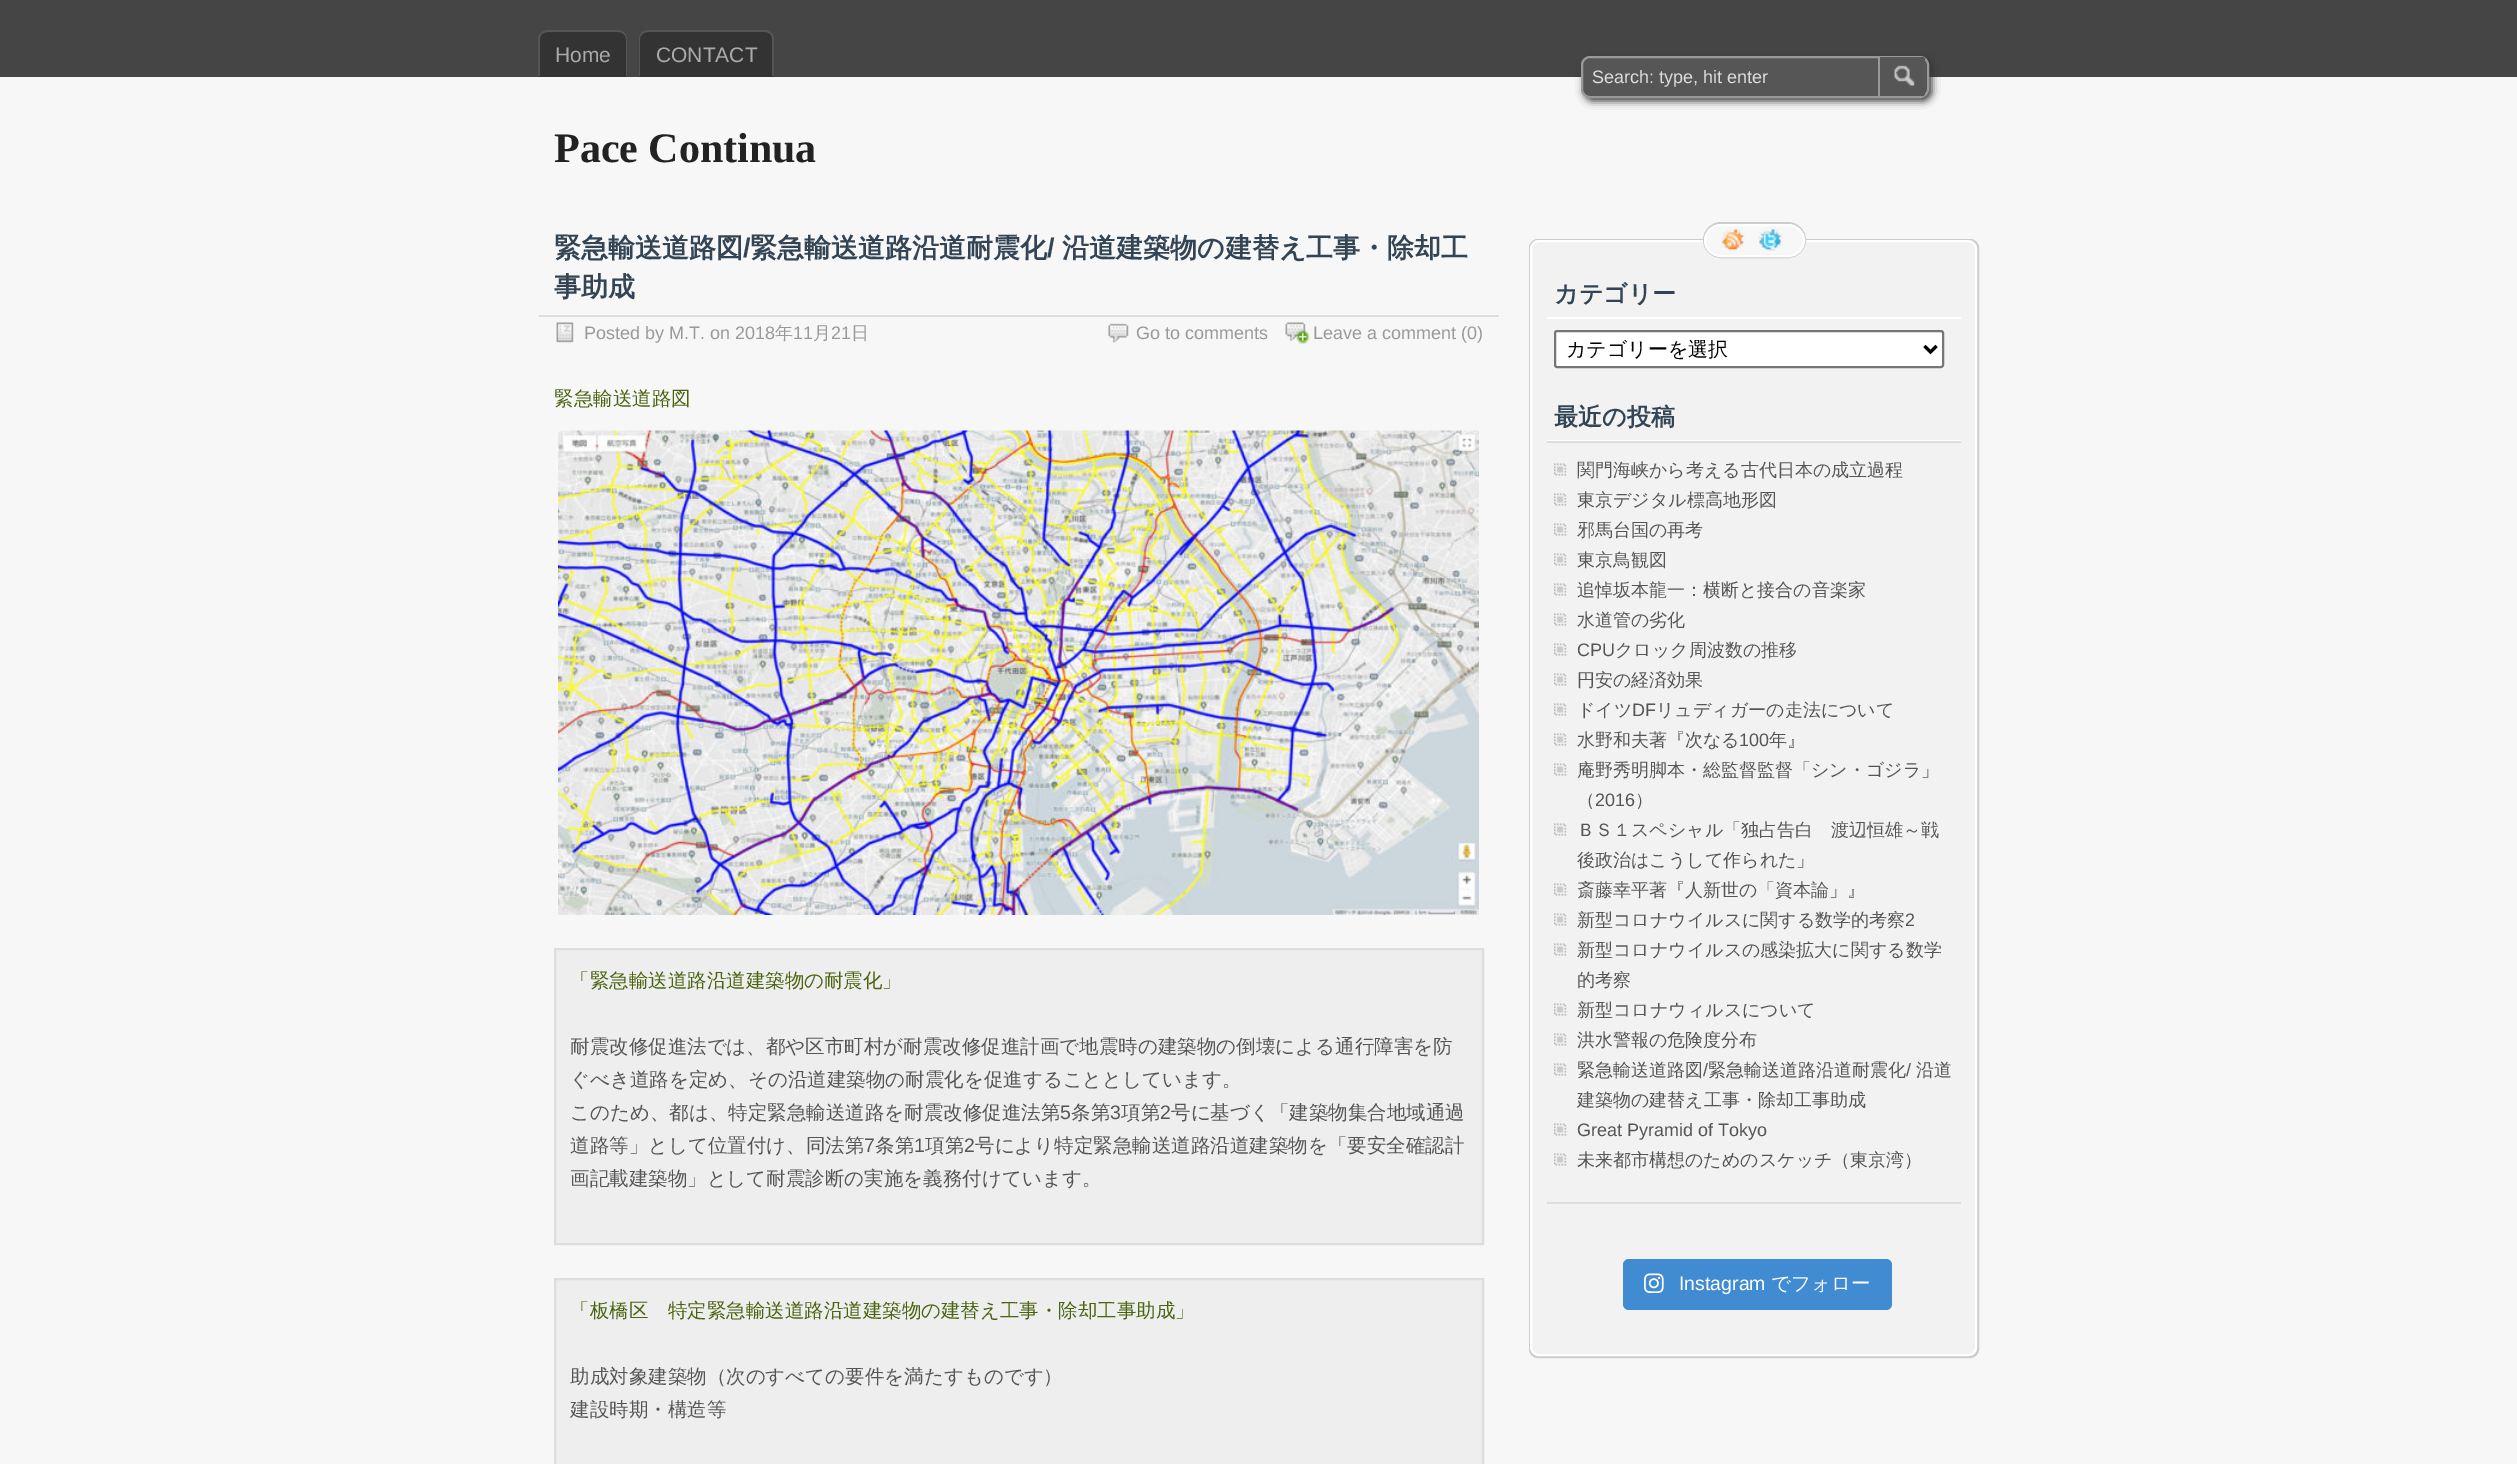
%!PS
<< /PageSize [2517 1464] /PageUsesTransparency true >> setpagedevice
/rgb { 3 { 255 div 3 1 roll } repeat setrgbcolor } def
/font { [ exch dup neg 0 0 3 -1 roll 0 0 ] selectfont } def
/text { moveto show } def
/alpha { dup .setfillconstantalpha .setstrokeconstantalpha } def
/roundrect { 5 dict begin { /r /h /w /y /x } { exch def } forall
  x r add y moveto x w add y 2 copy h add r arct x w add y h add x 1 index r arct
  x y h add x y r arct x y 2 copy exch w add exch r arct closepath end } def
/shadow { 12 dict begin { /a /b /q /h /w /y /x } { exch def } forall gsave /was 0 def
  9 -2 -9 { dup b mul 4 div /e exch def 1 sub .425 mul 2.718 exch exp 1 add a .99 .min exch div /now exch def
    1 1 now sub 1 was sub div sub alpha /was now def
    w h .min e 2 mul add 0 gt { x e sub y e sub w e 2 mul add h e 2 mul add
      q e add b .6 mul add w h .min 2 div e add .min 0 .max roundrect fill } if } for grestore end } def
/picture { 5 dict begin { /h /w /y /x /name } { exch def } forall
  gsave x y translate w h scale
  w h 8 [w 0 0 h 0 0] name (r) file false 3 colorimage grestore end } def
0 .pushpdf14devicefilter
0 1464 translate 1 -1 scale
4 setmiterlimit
247 247 247 rgb
0 0 2517 1464 rectfill
69 69 70 rgb
0 0 2517 77 rectfill
51 51 51 rgb
548 30 moveto 70 0 rlineto 5 0 9 4 9 9 rcurveto 0 38 rlineto -88 0 rlineto 0 -38 rlineto 0 -5 4 -9 9 -9 rcurveto closepath fill
85 85 85 rgb
548 30 moveto 70 0 rlineto 5 0 9 4 9 9 rcurveto 0 37 rlineto -89 0 rlineto 0 -37 rlineto 0 -5 5 -9 10 -9 rcurveto closepath 548 32 moveto 70 0 rlineto 4 0 8 3 8 7 rcurveto 0 37 rlineto -86 0 rlineto 0 -37 rlineto 0 -4 3 -7 8 -7 rcurveto closepath eofill
51 51 51 rgb
648 30 moveto 117 0 rlineto 5 0 9 4 9 9 rcurveto 0 38 rlineto -135 0 rlineto 0 -38 rlineto 0 -5 4 -9 9 -9 rcurveto closepath fill
85 85 85 rgb
648 30 moveto 117 0 rlineto 5 0 9 4 9 9 rcurveto 0 37 rlineto -135 0 rlineto 0 -37 rlineto 0 -5 4 -9 9 -9 rcurveto closepath 648 32 moveto 117 0 rlineto 4 0 7 3 7 7 rcurveto 0 37 rlineto -132 0 rlineto 0 -37 rlineto 0 -4 4 -7 8 -7 rcurveto closepath eofill
51 51 51 rgb
1584 59 348 42 9 4 1 shadow
86 86 87 rgb
1582 57 346 40 8 roundrect gsave fill grestore
153 153 153 rgb
2 setlinewidth
stroke
gsave
1583 57 345 39 8 roundrect clip newpath
86 86 87 rgb
1880 57 45 39 rectfill
grestore
(img_01.rgb) 1894 65 21 21 picture
1878 57 2 39 rectfill
250 250 250 rgb
539 314 960 1 rectfill
221 221 221 rgb
539 315 960 2 rectfill
(img_02.rgb) 556 322 18 21 picture
(img_03.rgb) 1108 323 21 20 picture
(img_04.rgb) 1285 322 25 22 picture
(img_05.rgb) 558 430 921 485 picture
238 238 238 rgb
555 949 moveto 928 0 rlineto 0 295 rlineto -928 0 rlineto closepath gsave fill grestore
221 221 221 rgb
stroke
238 238 238 rgb
555 1279 moveto 928 0 rlineto 0 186 rlineto -928 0 rlineto closepath gsave fill grestore
221 221 221 rgb
stroke
242 242 242 rgb
1530 240 448 1117 8 roundrect gsave fill grestore
204 204 204 rgb
stroke
255 255 255 rgb
1531 241 445 1114 8 roundrect stroke
204 204 204 rgb
1704 223 101 34 17 roundrect stroke
247 247 247 rgb
1705 225 99 31 15.5 roundrect gsave fill grestore
255 255 255 rgb
stroke
(img_06.rgb) 1720 229 25 22 picture
(img_07.rgb) 1758 229 24 22 picture
1547 317 414 2 rectfill
1555 331 388 36 2 roundrect gsave fill grestore
118 118 118 rgb
stroke
0 0 0 rgb
3 setlinewidth
1924.5 346 moveto 6 6 rlineto 6 -6 rlineto stroke
255 255 255 rgb
1547 440 414 1 rectfill
221 221 221 rgb
1547 441 414 2 rectfill
(img_08.rgb) 1554 463 13 13 picture
(img_08.rgb) 1554 493 13 13 picture
(img_08.rgb) 1554 523 13 13 picture
(img_08.rgb) 1554 553 13 13 picture
(img_08.rgb) 1554 583 13 13 picture
(img_08.rgb) 1554 613 13 13 picture
(img_08.rgb) 1554 643 13 13 picture
(img_08.rgb) 1554 673 13 13 picture
(img_08.rgb) 1554 703 13 13 picture
(img_08.rgb) 1554 733 13 13 picture
(img_08.rgb) 1554 763 13 13 picture
(img_08.rgb) 1554 823 13 13 picture
(img_08.rgb) 1554 883 13 13 picture
(img_08.rgb) 1554 913 13 13 picture
(img_08.rgb) 1554 943 13 13 picture
(img_08.rgb) 1554 1003 13 13 picture
(img_08.rgb) 1554 1033 13 13 picture
(img_08.rgb) 1554 1063 13 13 picture
(img_08.rgb) 1554 1123 13 13 picture
(img_08.rgb) 1554 1153 13 13 picture
1547 1202 414 2 rectfill
64 139 209 rgb
1623 1259 269 51 6 roundrect fill
(img_09.rgb) 1644 1273 20 20 picture
/LiberationSans-Regular 21 font
171 170 170 rgb
(Home) 555 62 text
(CONTACT) 656 62 text
/LiberationSans-Regular 18 font
221 221 221 rgb
(Search: type, hit enter) 1592 83 text
/LiberationSerif-Bold 42 font
34 34 34 rgb
(Pace Continua) 554 162 text
/WenQuanYiZenHei-Bold 27 font
51 68 85 rgb
(緊急輸送道路図) 554 257 text
/LiberationSans-Bold 27 font
(/) 743 257 text
/WenQuanYiZenHei-Bold 27 font
(緊急輸送道路沿道耐震化) 750 257 text
/LiberationSans-Bold 27 font
(/) 1047 257 text
/WenQuanYiZenHei-Bold 27 font
(沿道建築物の建替え工事・除却工) 1062 257 text
(事助成) 554 296 text
/LiberationSans-Regular 18 font
153 153 153 rgb
(Posted by M.T. on 2018) 584 339 text
/WenQuanYiZenHei-Medium 18 font
(年) 775 339 text
/LiberationSans-Regular 18 font
(11) 793 339 text
/WenQuanYiZenHei-Medium 18 font
(月) 813 339 text
/LiberationSans-Regular 18 font
(21) 831 339 text
/WenQuanYiZenHei-Medium 18 font
(日) 851 339 text
/LiberationSans-Regular 18 font
(Go to comments) 1136 339 text
(Leave a comment \(0\)) 1313 339 text
/WenQuanYiZenHei-Medium 19.5 font
74 99 15 rgb
(緊急輸送道路図) 554 405 text
(「緊急輸送道路沿道建築物の耐震化」) 570 987 text
85 85 85 rgb
(耐震改修促進法では、都や区市町村が耐震改修促進計画で地震時の建築物の倒壊による通行障害を防) 570 1053 text
(ぐべき道路を定め、その沿道建築物の耐震化を促進することとしています。) 570 1086 text
(このため、都は、特定緊急輸送道路を耐震改修促進法第) 570 1119 text
/LiberationSans-Regular 19.5 font
(5) 1060 1119 text
/WenQuanYiZenHei-Medium 19.5 font
(条第) 1071 1119 text
/LiberationSans-Regular 19.5 font
(3) 1110 1119 text
/WenQuanYiZenHei-Medium 19.5 font
(項第) 1121 1119 text
/LiberationSans-Regular 19.5 font
(2) 1160 1119 text
/WenQuanYiZenHei-Medium 19.5 font
(号に基づく「建築物集合地域通過) 1171 1119 text
(道路等」として位置付け、同法第) 570 1152 text
/LiberationSans-Regular 19.5 font
(7) 864 1152 text
/WenQuanYiZenHei-Medium 19.5 font
(条第) 875 1152 text
/LiberationSans-Regular 19.5 font
(1) 914 1152 text
/WenQuanYiZenHei-Medium 19.5 font
(項第) 925 1152 text
/LiberationSans-Regular 19.5 font
(2) 964 1152 text
/WenQuanYiZenHei-Medium 19.5 font
(号により特定緊急輸送道路沿道建築物を「要安全確認計) 975 1152 text
(画記載建築物」として耐震診断の実施を義務付けています。) 570 1185 text
74 99 15 rgb
(「板橋区　特定緊急輸送道路沿道建築物の建替え工事・除却工事助成」) 570 1317 text
85 85 85 rgb
(助成対象建築物（次のすべての要件を満たすものです）) 570 1383 text
(建設時期・構造等) 570 1416 text
/WenQuanYiZenHei-Bold 24 font
51 68 85 rgb
(カテゴリー) 1554 302 text
/WenQuanYiZenHei-Medium 20 font
0 0 0 rgb
(カテゴリーを選択) 1566 356 text
/WenQuanYiZenHei-Bold 24 font
51 68 85 rgb
(最近の投稿) 1554 425 text
/WenQuanYiZenHei-Medium 18 font
85 85 85 rgb
(関門海峡から考える古代日本の成立過程) 1577 476 text
(東京デジタル標高地形図) 1577 506 text
(邪馬台国の再考) 1577 536 text
(東京鳥観図) 1577 566 text
(追悼坂本龍一：横断と接合の音楽家) 1577 596 text
(水道管の劣化) 1577 626 text
/LiberationSans-Regular 18 font
(CPU) 1577 656 text
/WenQuanYiZenHei-Medium 18 font
(クロック周波数の推移) 1615 656 text
(円安の経済効果) 1577 686 text
(ドイツ) 1577 716 text
/LiberationSans-Regular 18 font
(DF) 1632 716 text
/WenQuanYiZenHei-Medium 18 font
(リュディガーの走法について) 1656 716 text
(水野和夫著『次なる) 1577 746 text
/LiberationSans-Regular 18 font
(100) 1739 746 text
/WenQuanYiZenHei-Medium 18 font
(年』) 1769 746 text
(庵野秀明脚本・総監督監督「シン・ゴジラ」) 1577 776 text
(（) 1577 806 text
/LiberationSans-Regular 18 font
(2016) 1595 806 text
/WenQuanYiZenHei-Medium 18 font
(）) 1635 806 text
(ＢＳ１スペシャル「独占告白　渡辺恒雄～戦) 1577 836 text
(後政治はこうして作られた」) 1577 866 text
(斎藤幸平著『人新世の「資本論」』) 1577 896 text
(新型コロナウイルスに関する数学的考察) 1577 926 text
/LiberationSans-Regular 18 font
(2) 1905 926 text
/WenQuanYiZenHei-Medium 18 font
(新型コロナウイルスの感染拡大に関する数学) 1577 956 text
(的考察) 1577 986 text
(新型コロナウィルスについて) 1577 1016 text
(洪水警報の危険度分布) 1577 1046 text
(緊急輸送道路図) 1577 1076 text
/LiberationSans-Regular 18 font
(/) 1703 1076 text
/WenQuanYiZenHei-Medium 18 font
(緊急輸送道路沿道耐震化) 1708 1076 text
/LiberationSans-Regular 18 font
(/) 1906 1076 text
/WenQuanYiZenHei-Medium 18 font
(沿道) 1916 1076 text
(建築物の建替え工事・除却工事助成) 1577 1106 text
/LiberationSans-Regular 18 font
(Great Pyramid of Tokyo) 1577 1136 text
/WenQuanYiZenHei-Medium 18 font
(未来都市構想のためのスケッチ（東京湾）) 1577 1166 text
/LiberationSans-Regular 19.5 font
255 255 255 rgb
(Instagram) 1679 1290 text
/WenQuanYiZenHei-Medium 19.5 font
(でフォロー) 1771 1290 text
.poppdf14devicefilter showpage
